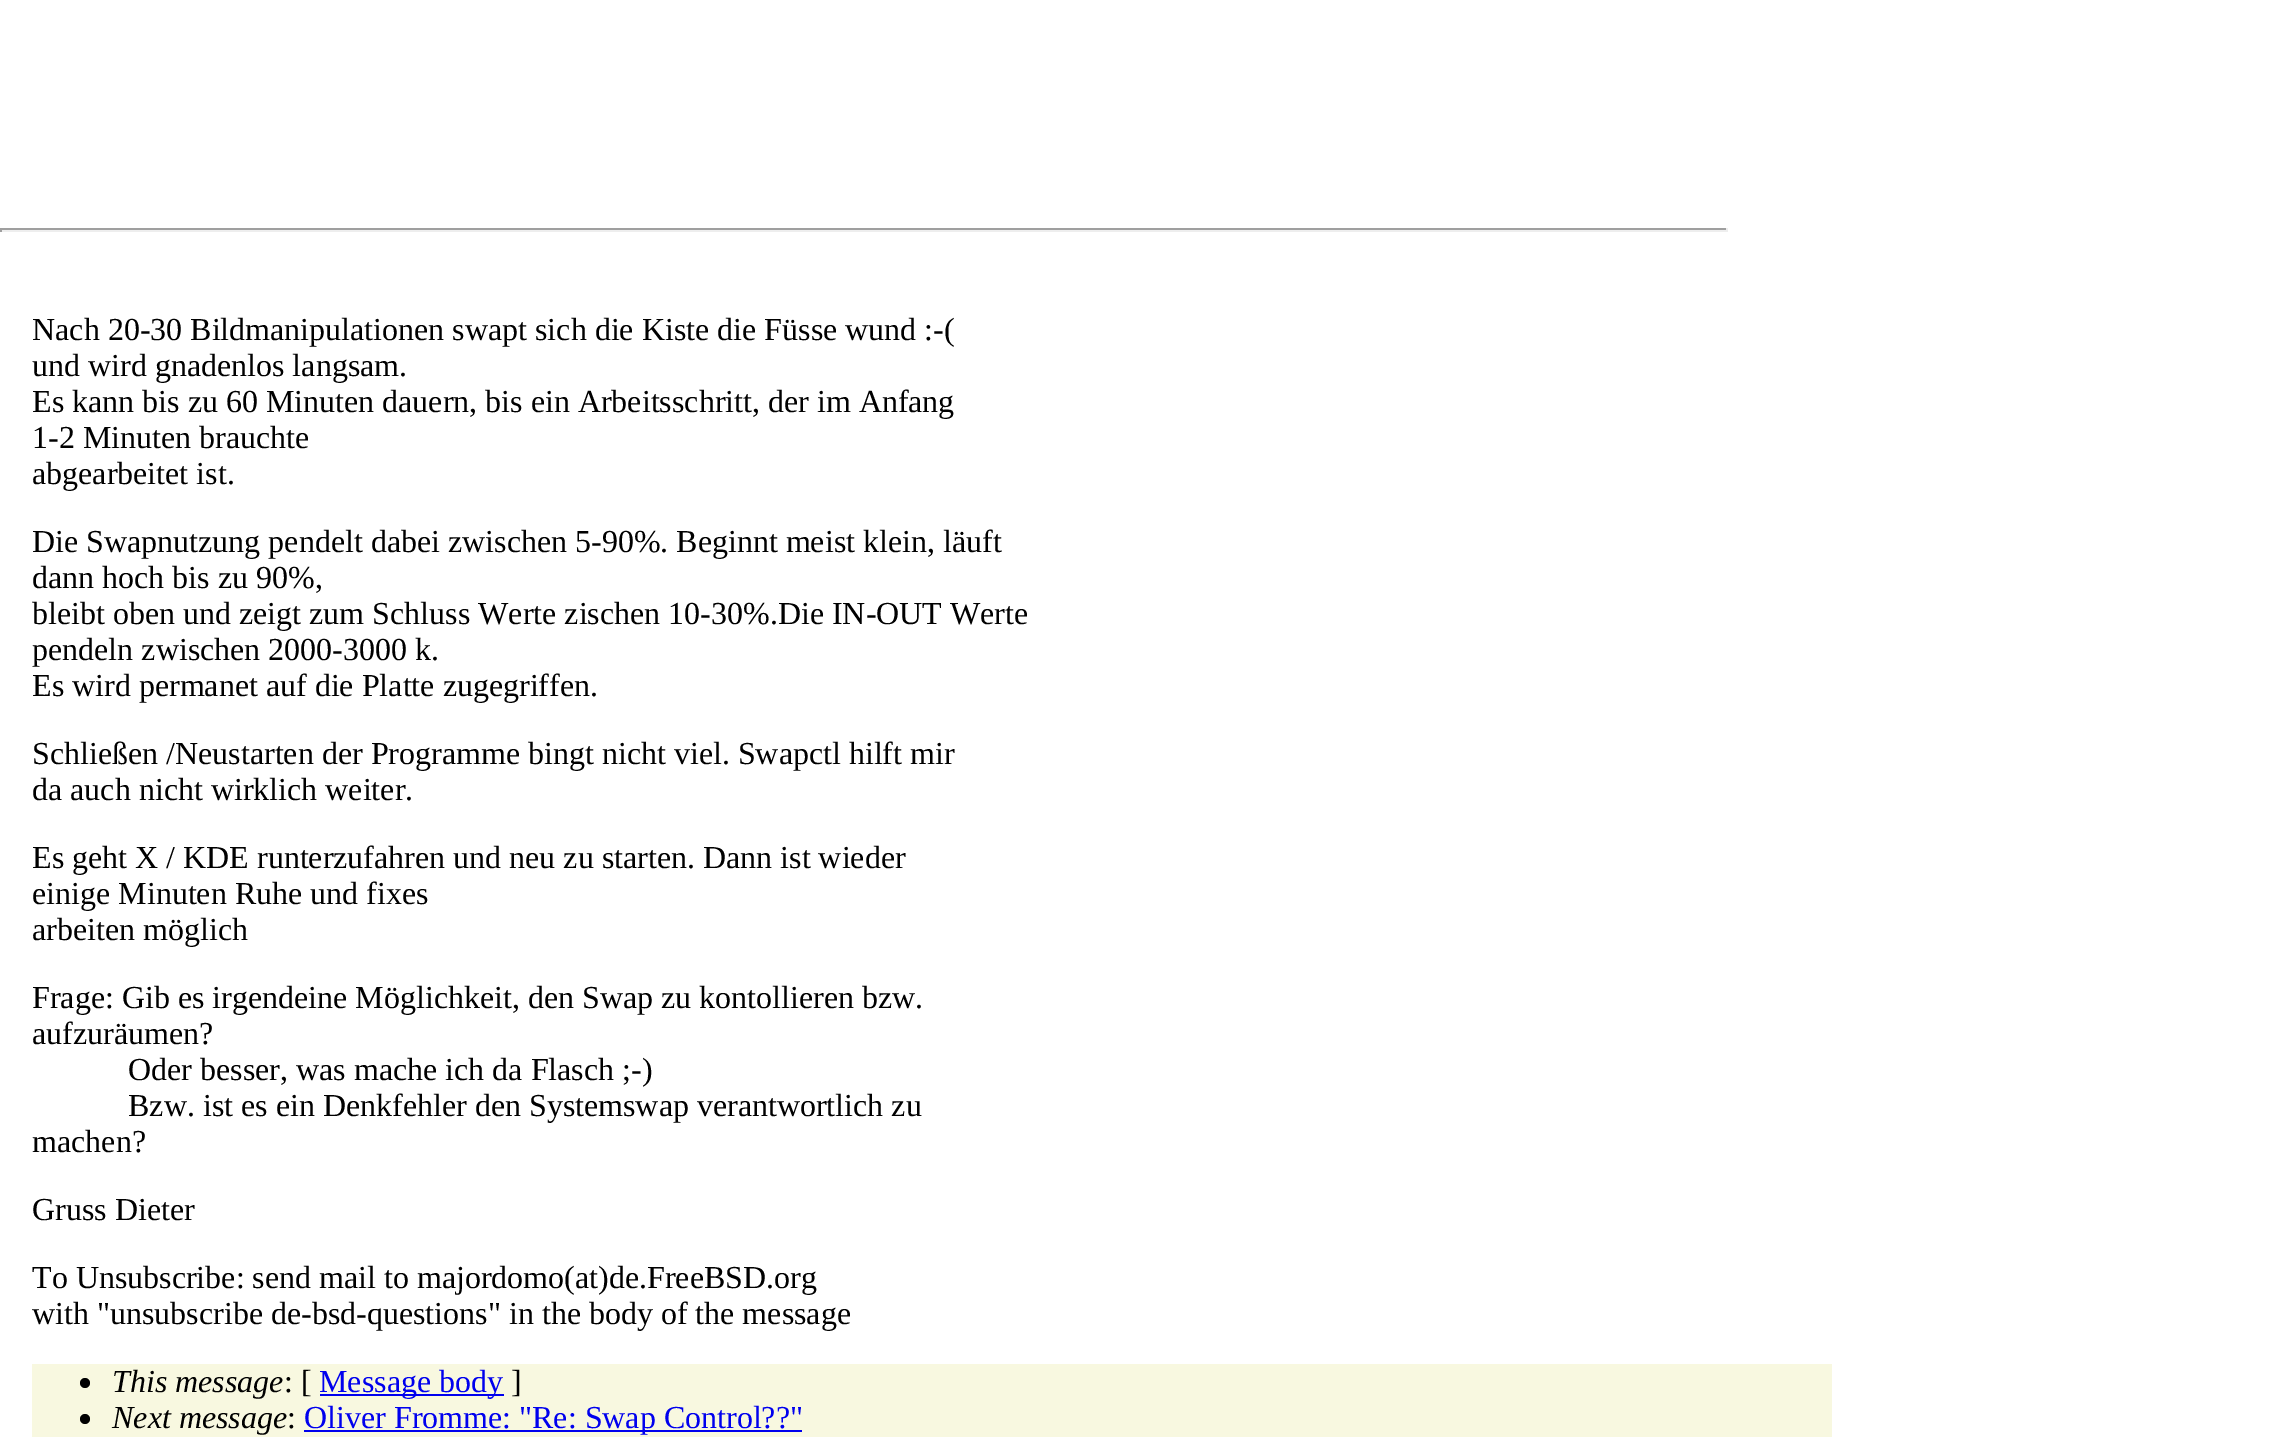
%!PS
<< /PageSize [2293 1437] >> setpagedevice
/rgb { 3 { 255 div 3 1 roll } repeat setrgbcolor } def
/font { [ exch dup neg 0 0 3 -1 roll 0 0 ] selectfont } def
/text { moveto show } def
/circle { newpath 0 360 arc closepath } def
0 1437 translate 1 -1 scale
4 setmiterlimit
255 255 255 rgb
0 0 2293 1437 rectfill
159 159 159 rgb
0 228 1728 2 rectfill
238 238 238 rgb
1726 228 2 4 rectfill
0 230 1728 2 rectfill
159 159 159 rgb
0 228 2 4 rectfill
248 248 224 rgb
32 1364 1800 73 rectfill
0 0 0 rgb
85 1383 5 circle fill
0 0 238 rgb
320 1394 184 2 rectfill
0 0 0 rgb
85 1419 5 circle fill
0 0 238 rgb
304 1430 498 2 rectfill
/LiberationSerif-Regular 32 font
0 0 0 rgb
(Nach 20-30 Bildmanipulationen swapt sich die Kiste die Füsse wund :-\() 32 340 text
(und wird gnadenlos langsam.) 32 376 text
(Es kann bis zu 60 Minuten dauern, bis ein Arbeitsschritt, der im Anfang) 32 412 text
(1-2 Minuten brauchte) 32 448 text
(abgearbeitet ist.) 32 484 text
(Die Swapnutzung pendelt dabei zwischen 5-90%. Beginnt meist klein, läuft) 32 552 text
(dann hoch bis zu 90%,) 32 588 text
(bleibt oben und zeigt zum Schluss Werte zischen 10-30%.Die IN-OUT Werte) 32 624 text
(pendeln zwischen 2000-3000 k.) 32 660 text
(Es wird permanet auf die Platte zugegriffen.) 32 696 text
(Schließen /Neustarten der Programme bingt nicht viel. Swapctl hilft mir) 32 764 text
(da auch nicht wirklich weiter.) 32 800 text
(Es geht X / KDE runterzufahren und neu zu starten. Dann ist wieder) 32 868 text
(einige Minuten Ruhe und fixes) 32 904 text
(arbeiten möglich) 32 940 text
(Frage: Gib es irgendeine Möglichkeit, den Swap zu kontollieren bzw.) 32 1008 text
(aufzuräumen?) 32 1044 text
(Oder besser, was mache ich da Flasch ;-\)) 128 1080 text
(Bzw. ist es ein Denkfehler den Systemswap verantwortlich zu) 128 1116 text
(machen?) 32 1152 text
(Gruss Dieter) 32 1220 text
(To Unsubscribe: send mail to majordomo\(at\)de.FreeBSD.org) 32 1288 text
(with "unsubscribe de-bsd-questions" in the body of the message) 32 1324 text
/LiberationSerif-Italic 32 font
(This message) 112 1392 text
/LiberationSerif-Regular 32 font
(: [) 284 1392 text
0 0 238 rgb
(Message body) 319 1392 text
0 0 0 rgb
(]) 511 1392 text
/LiberationSerif-Italic 32 font
(Next message) 112 1428 text
/LiberationSerif-Regular 32 font
(:) 287 1428 text
0 0 238 rgb
(Oliver Fromme: "Re: Swap Control??") 304 1428 text
showpage
